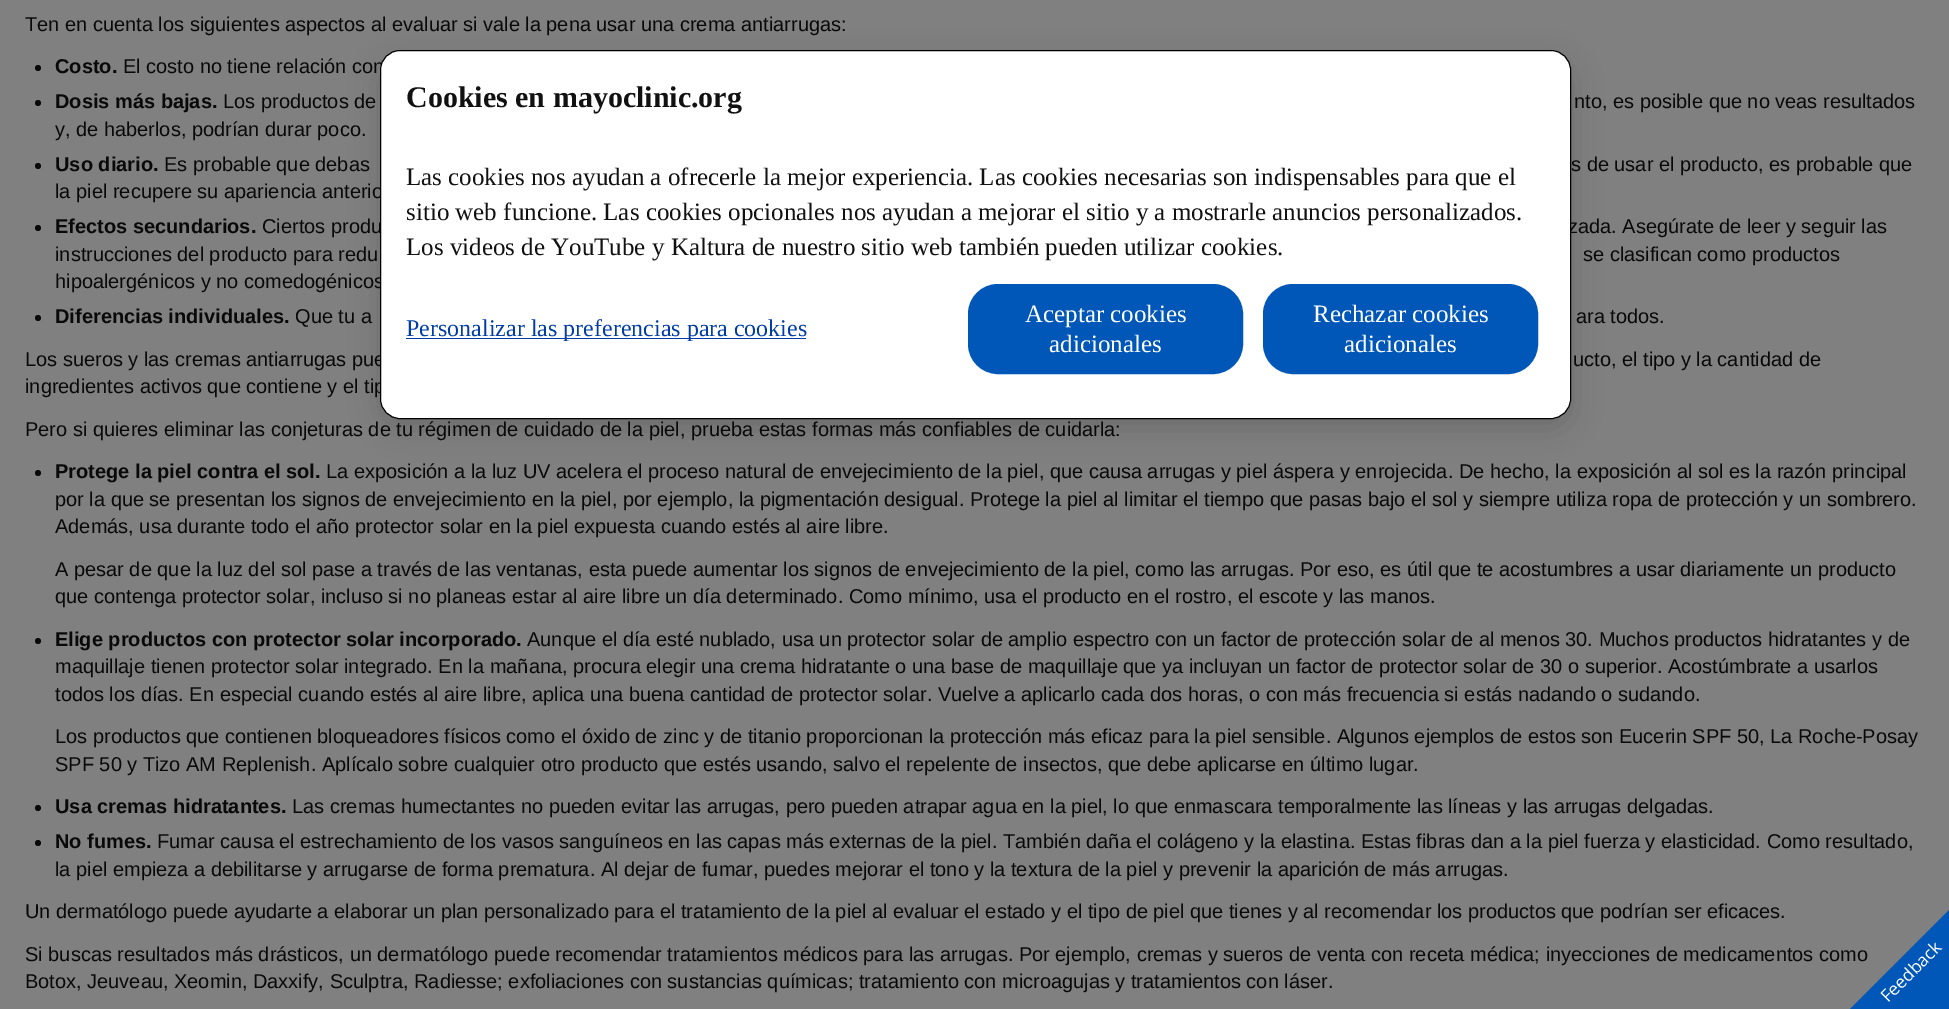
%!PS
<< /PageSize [1949 1009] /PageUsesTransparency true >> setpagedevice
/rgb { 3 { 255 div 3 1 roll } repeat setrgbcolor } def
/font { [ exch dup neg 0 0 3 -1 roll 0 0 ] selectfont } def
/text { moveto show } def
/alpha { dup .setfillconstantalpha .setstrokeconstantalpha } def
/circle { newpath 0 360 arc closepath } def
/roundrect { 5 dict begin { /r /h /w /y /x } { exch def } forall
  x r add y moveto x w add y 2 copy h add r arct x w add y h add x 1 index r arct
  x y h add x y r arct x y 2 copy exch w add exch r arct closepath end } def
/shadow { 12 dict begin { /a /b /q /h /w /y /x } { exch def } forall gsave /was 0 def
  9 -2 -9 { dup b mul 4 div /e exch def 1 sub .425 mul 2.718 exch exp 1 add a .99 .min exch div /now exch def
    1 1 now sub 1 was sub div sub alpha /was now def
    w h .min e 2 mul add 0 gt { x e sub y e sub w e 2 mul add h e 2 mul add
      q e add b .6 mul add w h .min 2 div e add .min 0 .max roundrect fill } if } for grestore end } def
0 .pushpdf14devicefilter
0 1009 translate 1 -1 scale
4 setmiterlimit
128 128 128 rgb
0 0 1949 1009 rectfill
9 9 9 rgb
38 68 3 circle fill
38 103 3 circle fill
38 166 3 circle fill
38 228 3 circle fill
38 318 3 circle fill
38 473 3 circle fill
38 641 3 circle fill
38 808 3 circle fill
38 843 3 circle fill
0 0 0 rgb
380 60 1191 369 20 15 0.16 shadow
/LiberationSans-Regular 20 font
9 9 9 rgb
(Ten en cuenta los siguientes aspectos al evaluar si vale la pena usar una crema antiarrugas:) 25 31 text
/LiberationSans-Bold 20 font
(Costo.) 55 73 text
/LiberationSans-Regular 20 font
(El costo no tiene relación con) 123 73 text
/LiberationSans-Bold 20 font
(Dosis más bajas.) 55 108 text
/LiberationSans-Regular 20 font
(Los productos de) 223 108 text
(nto, es posible que no veas resultados) 1574 108 text
(y, de haberlos, podrían durar poco.) 55 136 text
/LiberationSans-Bold 20 font
(Uso diario.) 55 171 text
/LiberationSans-Regular 20 font
(Es probable que debas) 164 171 text
(s de usar el producto, es probable que) 1571 171 text
(la piel recupere su apariencia anterio) 55 198 text
/LiberationSans-Bold 20 font
(Efectos secundarios.) 55 233 text
/LiberationSans-Regular 20 font
(Ciertos produ) 262 233 text
(zada. Asegúrate de leer y seguir las) 1568 233 text
(instrucciones del producto para redu) 55 261 text
(se clasifican como productos) 1583 261 text
(hipoalergénicos y no comedogénicos) 55 288 text
/LiberationSans-Bold 20 font
(Diferencias individuales.) 55 323 text
/LiberationSans-Regular 20 font
(Que tu a) 295 323 text
(ara todos.) 1576 323 text
(Los sueros y las cremas antiarrugas pue) 25 366 text
(ucto, el tipo y la cantidad de) 1573 366 text
(ingredientes activos que contiene y el tip) 25 393 text
(Pero si quieres eliminar las conjeturas de tu régimen de cuidado de la piel, prueba estas formas más confiables de cuidarla:) 25 436 text
/LiberationSans-Bold 20 font
(Protege la piel contra el sol.) 55 478 text
/LiberationSans-Regular 20 font
(La exposición a la luz UV acelera el proceso natural de envejecimiento de la piel, que causa arrugas y piel áspera y enrojecida. De hecho, la exposición al sol es la razón principal) 326 478 text
(por la que se presentan los signos de envejecimiento en la piel, por ejemplo, la pigmentación desigual. Protege la piel al limitar el tiempo que pasas bajo el sol y siempre utiliza ropa de protección y un sombrero.) 55 506 text
(Además, usa durante todo el año protector solar en la piel expuesta cuando estés al aire libre.) 55 533 text
(A pesar de que la luz del sol pase a través de las ventanas, esta puede aumentar los signos de envejecimiento de la piel, como las arrugas. Por eso, es útil que te acostumbres a usar diariamente un producto) 55 576 text
(que contenga protector solar, incluso si no planeas estar al aire libre un día determinado. Como mínimo, usa el producto en el rostro, el escote y las manos.) 55 603 text
/LiberationSans-Bold 20 font
(Elige productos con protector solar incorporado.) 55 646 text
/LiberationSans-Regular 20 font
(Aunque el día esté nublado, usa un protector solar de amplio espectro con un factor de protección solar de al menos 30. Muchos productos hidratantes y de) 527 646 text
(maquillaje tienen protector solar integrado. En la mañana, procura elegir una crema hidratante o una base de maquillaje que ya incluyan un factor de protector solar de 30 o superior. Acostúmbrate a usarlos) 55 673 text
(todos los días. En especial cuando estés al aire libre, aplica una buena cantidad de protector solar. Vuelve a aplicarlo cada dos horas, o con más frecuencia si estás nadando o sudando.) 55 701 text
(Los productos que contienen bloqueadores físicos como el óxido de zinc y de titanio proporcionan la protección más eficaz para la piel sensible. Algunos ejemplos de estos son Eucerin SPF 50, La Roche-Posay) 55 743 text
(SPF 50 y Tizo AM Replenish. Aplícalo sobre cualquier otro producto que estés usando, salvo el repelente de insectos, que debe aplicarse en último lugar.) 55 771 text
/LiberationSans-Bold 20 font
(Usa cremas hidratantes.) 55 813 text
/LiberationSans-Regular 20 font
(Las cremas humectantes no pueden evitar las arrugas, pero pueden atrapar agua en la piel, lo que enmascara temporalmente las líneas y las arrugas delgadas.) 292 813 text
/LiberationSans-Bold 20 font
(No fumes.) 55 848 text
/LiberationSans-Regular 20 font
(Fumar causa el estrechamiento de los vasos sanguíneos en las capas más externas de la piel. También daña el colágeno y la elastina. Estas fibras dan a la piel fuerza y elasticidad. Como resultado,) 157 848 text
(la piel empieza a debilitarse y arrugarse de forma prematura. Al dejar de fumar, puedes mejorar el tono y la textura de la piel y prevenir la aparición de más arrugas.) 55 876 text
(Un dermatólogo puede ayudarte a elaborar un plan personalizado para el tratamiento de la piel al evaluar el estado y el tipo de piel que tienes y al recomendar los productos que podrían ser eficaces.) 25 918 text
(Si buscas resultados más drásticos, un dermatólogo puede recomendar tratamientos médicos para las arrugas. Por ejemplo, cremas y sueros de venta con receta médica; inyecciones de medicamentos como) 25 961 text
(Botox, Jeuveau, Xeomin, Daxxify, Sculptra, Radiesse; exfoliaciones con sustancias químicas; tratamiento con microagujas y tratamientos con láser.) 25 988 text
255 255 255 rgb
380.5 50.5 1190 368 19.5 roundrect gsave fill grestore
0 0 0 rgb
stroke
/LiberationSerif-Bold 30 font
17 17 17 rgb
(Cookies en mayoclinic.org) 406 107 text
/LiberationSerif-Regular 25 font
(Las cookies nos ayudan a ofrecerle la mejor experiencia. Las cookies necesarias son indispensables para que el) 406 185 text
(sitio web funcione. Las cookies opcionales nos ayudan a mejorar el sitio y a mostrarle anuncios personalizados.) 406 220 text
(Los videos de YouTube y Kaltura de nuestro sitio web también pueden utilizar cookies.) 406 255 text
0 61 165 rgb
406 338 400 1 rectfill
/LiberationSerif-Regular 24 font
(Personalizar las preferencias para cookies) 406 336 text
0 87 184 rgb
969.5 285.5 272 87 28.5 roundrect gsave fill grestore
3 setlinewidth
stroke
/LiberationSerif-Regular 25 font
255 255 255 rgb
(Aceptar cookies) 1025 322 text
(adicionales) 1049 352 text
0 87 184 rgb
1264.5 285.5 272 87 28.5 roundrect gsave fill grestore
stroke
255 255 255 rgb
(Rechazar cookies) 1313 322 text
(adicionales) 1344 352 text
0 87 184 rgb
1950 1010 moveto -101 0 rlineto 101 -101 rlineto closepath fill
/OpenSans-Regular 17.5 font
255 255 255 rgb
gsave 1888 1003 translate -45 rotate 0 0 moveto (Feedback) show grestore
.poppdf14devicefilter showpage
